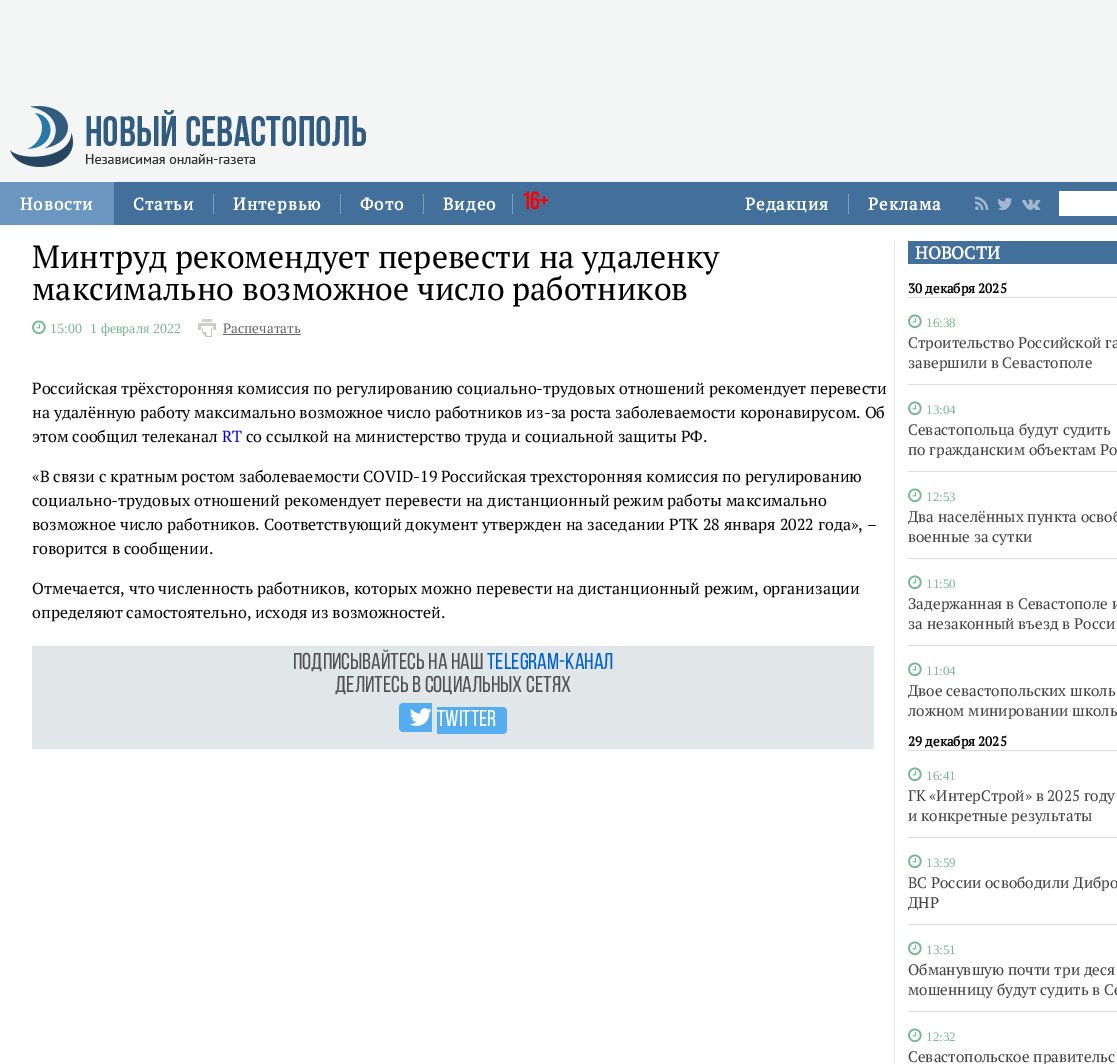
%!PS
<< /PageSize [1117 1064] >> setpagedevice
/rgb { 3 { 255 div 3 1 roll } repeat setrgbcolor } def
/font { [ exch dup neg 0 0 3 -1 roll 0 0 ] selectfont } def
/text { moveto show } def
/picture { 5 dict begin { /h /w /y /x /name } { exch def } forall
  gsave x y translate w h scale
  w h 8 [w 0 0 h 0 0] name (r) file false 3 colorimage grestore end } def
0 1064 translate 1 -1 scale
4 setmiterlimit
244 246 246 rgb
0 0 1117 1064 rectfill
(img_01.rgb) 10 106 356 61 picture
67 112 154 rgb
114 182 1003 43 rectfill
107 150 191 rgb
0 182 114 43 rectfill
124 157 188 rgb
213 194 1 20 rectfill
340 194 1 20 rectfill
423 194 1 20 rectfill
512 194 1 20 rectfill
848 194 1 20 rectfill
(img_02.rgb) 975 196 14 14 picture
(img_03.rgb) 997 197 16 13 picture
(img_04.rgb) 1022 199 19 11 picture
255 255 255 rgb
1059 191 58 25 rectfill
0 225 1117 839 rectfill
(img_05.rgb) 32 320 14 15 picture
(img_06.rgb) 198 319 18 18 picture
105 100 100 rgb
223 334 78 1 rectfill
225 230 233 rgb
32 646 842 103 rectfill
85 172 238 rgb
403 703 moveto 29 0 rlineto 0 29 rlineto -29 0 rlineto -2 0 -4 -2 -4 -4 rcurveto 0 -21 rlineto 0 -2 2 -4 4 -4 rcurveto closepath fill
437 707 moveto 66 0 rlineto 2 0 4 2 4 4 rcurveto 0 19 rlineto 0 2 -2 4 -4 4 rcurveto -66 0 rlineto closepath fill
(img_07.rgb) 409 708 23 18 picture
233 233 233 rgb
894 241 1 823 rectfill
67 112 154 rgb
908 241 209 23 rectfill
220 220 220 rgb
908 297 209 1 rectfill
(img_05.rgb) 908 314 14 15 picture
908 384 209 1 rectfill
(img_05.rgb) 908 401 14 15 picture
908 471 209 1 rectfill
(img_05.rgb) 908 488 14 15 picture
908 558 209 1 rectfill
(img_05.rgb) 908 575 14 15 picture
908 645 209 1 rectfill
(img_05.rgb) 908 662 14 15 picture
908 750 209 1 rectfill
(img_05.rgb) 908 767 14 15 picture
908 837 209 1 rectfill
(img_05.rgb) 908 854 14 15 picture
908 924 209 1 rectfill
(img_05.rgb) 908 941 14 15 picture
908 1011 209 1 rectfill
(img_05.rgb) 908 1028 14 15 picture
/PTSerif-Bold 17 font
255 255 255 rgb
20 210 moveto 1 0 (Новости) ashow
133 210 moveto 1 0 (Статьи) ashow
233 210 moveto 1 0 (Интервью) ashow
360 210 moveto 1 0 (Фото) ashow
443 210 moveto 1 0 (Видео) ashow
/BebasNeue-Bold 24 font
255 0 0 rgb
(16+) 522 209 text
/PTSerif-Bold 17 font
255 255 255 rgb
745 210 moveto 1 0 (Редакция) ashow
868 210 moveto 1 0 (Реклама) ashow
/PTSerif-Regular 32 font
0 0 0 rgb
(Минтруд рекомендует перевести на удаленку) 32 268 text
(максимально возможное число работников) 32 300 text
/LiberationSerif-Regular 14 font
120 185 146 rgb
(15:00) 50 333 text
(1 февраля 2022) 90 333 text
/PTSerif-Regular 13.5 font
105 100 100 rgb
(Распечатать) 223 333 text
/PTSerif-Regular 16 font
0 0 0 rgb
(Российская трёхсторонняя комиссия по регулированию социально-трудовых отношений рекомендует перевести) 32 394 text
(на удалённую работу максимально возможное число работников из-за роста заболеваемости коронавирусом. Об) 32 418 text
(этом сообщил телеканал) 32 442 text
0 0 238 rgb
(RT) 222 442 text
0 0 0 rgb
(со ссылкой на министерство труда и социальной защиты РФ.) 246 442 text
(«В связи с кратным ростом заболеваемости COVID-19 Российская трехсторонняя комиссия по регулированию) 32 482 text
(социально-трудовых отношений рекомендует перевести на дистанционный режим работы максимально) 32 506 text
(возможное число работников. Соответствующий документ утвержден на заседании РТК 28 января 2022 года», –) 32 530 text
(говорится в сообщении.) 32 554 text
(Отмечается, что численность работников, которых можно перевести на дистанционный режим, организации) 32 594 text
(определяют самостоятельно, исходя из возможностей.) 32 618 text
/BebasNeue-Regular 23 font
82 82 86 rgb
(Подписывайтесь на наш) 293 669 text
0 98 210 rgb
(telegram-канал) 487 669 text
82 82 86 rgb
(Делитесь в социальных сетях) 335 692 text
255 255 255 rgb
(TWITTER) 437 726 text
/PTSerif-Bold 17.5 font
(НОВОСТИ) 915 259 text
/PTSerif-Bold 13.25 font
0 0 0 rgb
(30 декабря 2025) 908 293 text
/LiberationSerif-Regular 13 font
120 185 146 rgb
(16:38) 926 327 text
/PTSerif-Regular 15.25 font
67 67 67 rgb
(Строительство Российской га) 908 348 text
(завершили в Севастополе) 908 368 text
/LiberationSerif-Regular 13 font
120 185 146 rgb
(13:04) 926 414 text
/PTSerif-Regular 15.25 font
67 67 67 rgb
(Севастопольца будут судить) 908 435 text
(по гражданским объектам Ро) 908 455 text
/LiberationSerif-Regular 13 font
120 185 146 rgb
(12:53) 926 501 text
/PTSerif-Regular 15.25 font
67 67 67 rgb
(Два населённых пункта освоб) 908 522 text
(военные за сутки) 908 542 text
/LiberationSerif-Regular 13 font
120 185 146 rgb
(11:50) 926 588 text
/PTSerif-Regular 15.25 font
67 67 67 rgb
(Задержанная в Севастополе и) 908 609 text
(за незаконный въезд в Росси) 908 629 text
/LiberationSerif-Regular 13 font
120 185 146 rgb
(11:04) 926 675 text
/PTSerif-Regular 15.25 font
67 67 67 rgb
(Двое севастопольских школь) 908 696 text
(ложном минировании школы) 908 716 text
/PTSerif-Bold 13.25 font
0 0 0 rgb
(29 декабря 2025) 908 746 text
/LiberationSerif-Regular 13 font
120 185 146 rgb
(16:41) 926 780 text
/PTSerif-Regular 15.25 font
67 67 67 rgb
(ГК «ИнтерСтрой» в 2025 году) 908 801 text
(и конкретные результаты) 908 821 text
/LiberationSerif-Regular 13 font
120 185 146 rgb
(13:59) 926 867 text
/PTSerif-Regular 15.25 font
67 67 67 rgb
(ВС России освободили Дибро) 908 888 text
(ДНР) 908 908 text
/LiberationSerif-Regular 13 font
120 185 146 rgb
(13:51) 926 954 text
/PTSerif-Regular 15.25 font
67 67 67 rgb
(Обманувшую почти три деся) 908 975 text
(мошенницу будут судить в Се) 908 995 text
/LiberationSerif-Regular 13 font
120 185 146 rgb
(12:32) 926 1041 text
/PTSerif-Regular 15.25 font
67 67 67 rgb
(Севастопольское правительс) 908 1062 text
showpage
